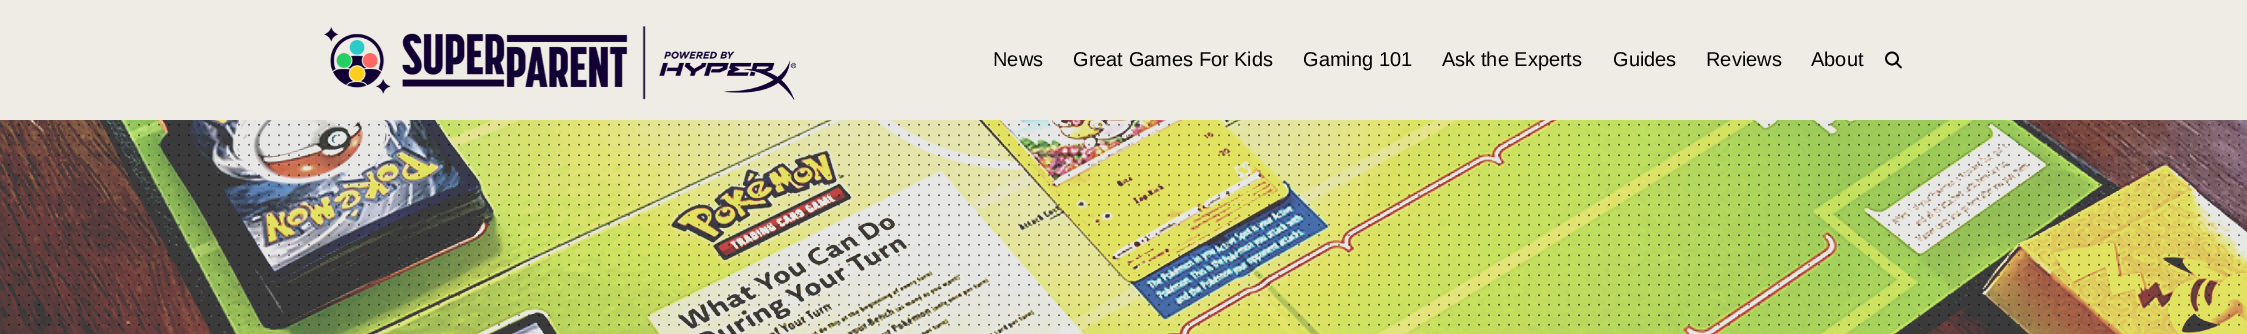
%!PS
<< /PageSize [2247 334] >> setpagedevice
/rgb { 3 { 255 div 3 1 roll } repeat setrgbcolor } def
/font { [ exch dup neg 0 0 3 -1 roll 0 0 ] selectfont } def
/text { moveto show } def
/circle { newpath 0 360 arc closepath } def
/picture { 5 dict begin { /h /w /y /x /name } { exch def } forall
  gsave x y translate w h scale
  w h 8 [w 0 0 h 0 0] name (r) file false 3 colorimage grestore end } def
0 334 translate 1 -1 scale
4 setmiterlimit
255 255 255 rgb
0 0 2247 334 rectfill
239 236 229 rgb
0 0 2247 120 rectfill
(img_01.rgb) 324 26 472 74 picture
0 0 0 rgb
1.7 setlinewidth
1892 58.5 6 circle stroke
1 setlinecap
1 setlinejoin
1901 67.5 moveto -5 -5 rlineto stroke
(img_02.rgb) 0 120 2247 214 picture
(img_03.rgb) 8 123 2232 203 picture
/LiberationSans-Regular 20 font
(News) 993 66 text
(Great Games For Kids) 1073 66 text
(Gaming 101) 1303 66 text
(Ask the Experts) 1442 66 text
(Guides) 1613 66 text
(Reviews) 1706 66 text
(About) 1811 66 text
showpage
